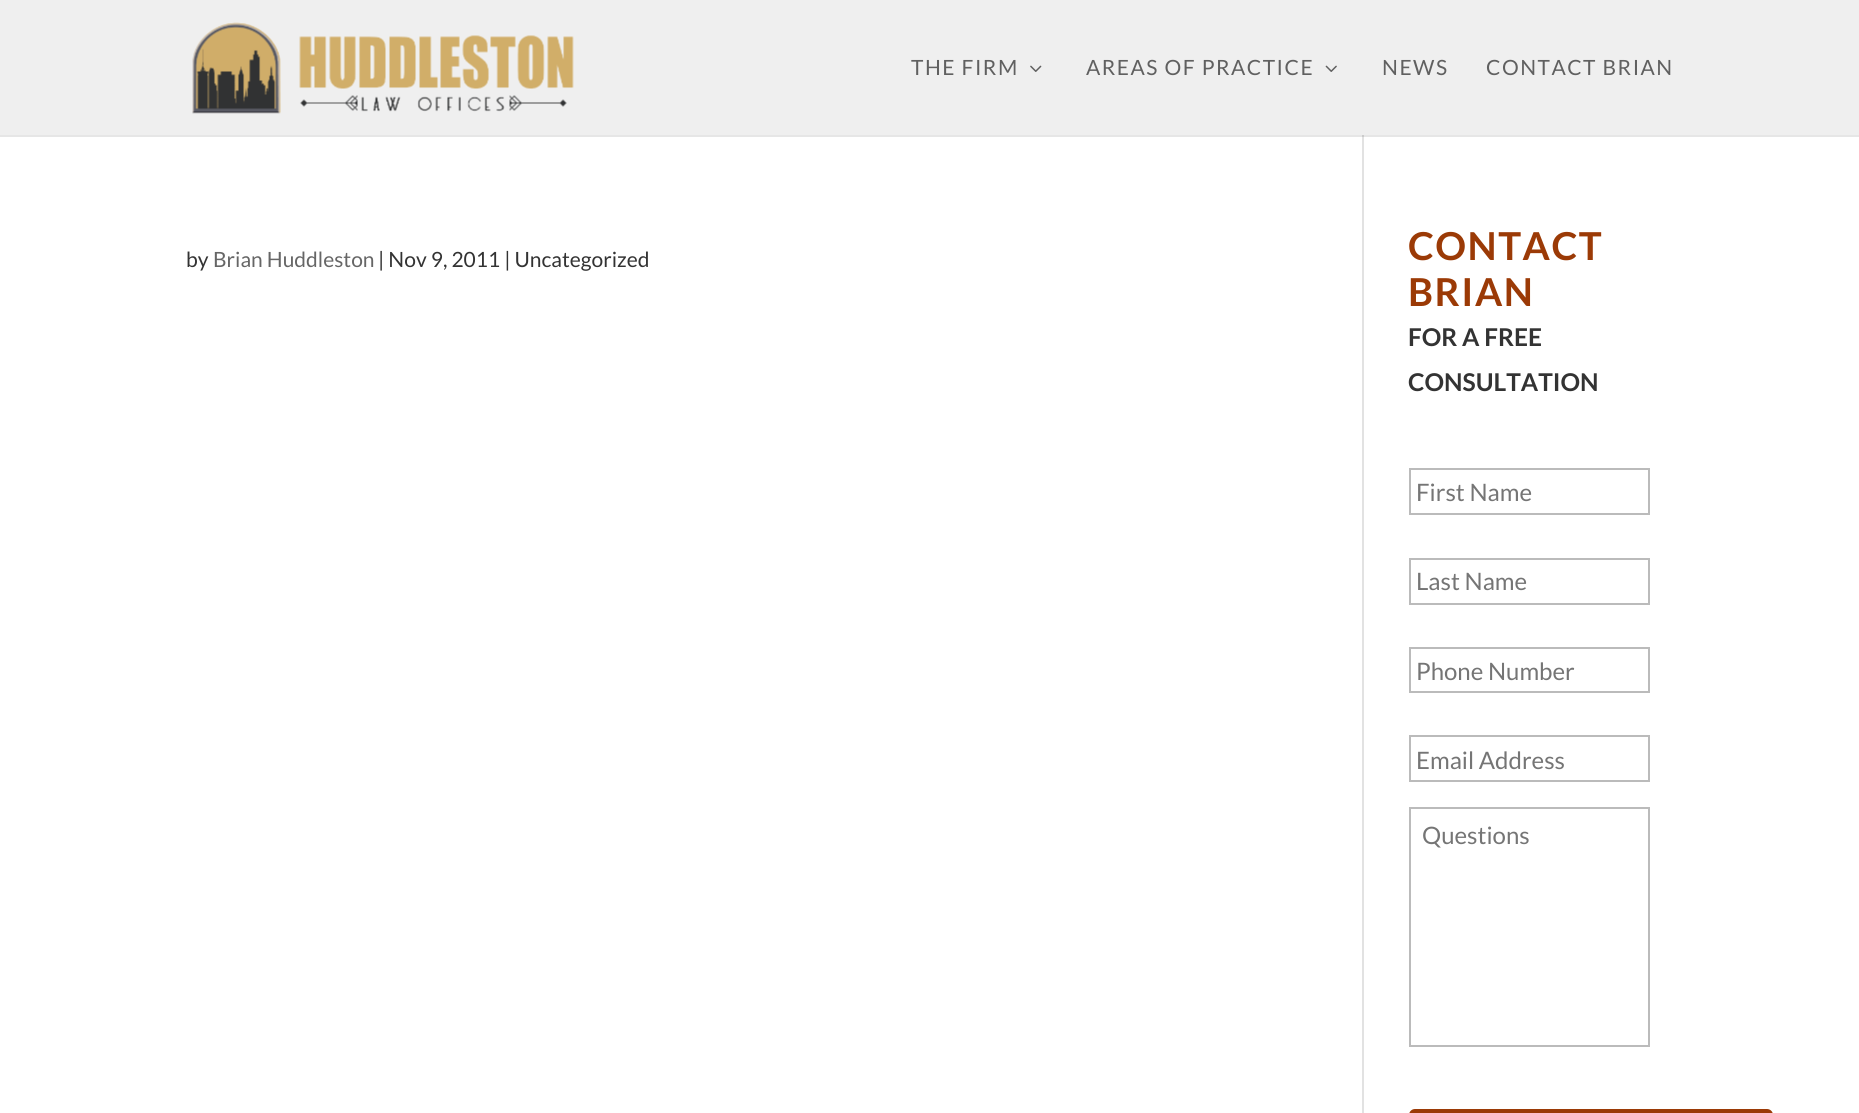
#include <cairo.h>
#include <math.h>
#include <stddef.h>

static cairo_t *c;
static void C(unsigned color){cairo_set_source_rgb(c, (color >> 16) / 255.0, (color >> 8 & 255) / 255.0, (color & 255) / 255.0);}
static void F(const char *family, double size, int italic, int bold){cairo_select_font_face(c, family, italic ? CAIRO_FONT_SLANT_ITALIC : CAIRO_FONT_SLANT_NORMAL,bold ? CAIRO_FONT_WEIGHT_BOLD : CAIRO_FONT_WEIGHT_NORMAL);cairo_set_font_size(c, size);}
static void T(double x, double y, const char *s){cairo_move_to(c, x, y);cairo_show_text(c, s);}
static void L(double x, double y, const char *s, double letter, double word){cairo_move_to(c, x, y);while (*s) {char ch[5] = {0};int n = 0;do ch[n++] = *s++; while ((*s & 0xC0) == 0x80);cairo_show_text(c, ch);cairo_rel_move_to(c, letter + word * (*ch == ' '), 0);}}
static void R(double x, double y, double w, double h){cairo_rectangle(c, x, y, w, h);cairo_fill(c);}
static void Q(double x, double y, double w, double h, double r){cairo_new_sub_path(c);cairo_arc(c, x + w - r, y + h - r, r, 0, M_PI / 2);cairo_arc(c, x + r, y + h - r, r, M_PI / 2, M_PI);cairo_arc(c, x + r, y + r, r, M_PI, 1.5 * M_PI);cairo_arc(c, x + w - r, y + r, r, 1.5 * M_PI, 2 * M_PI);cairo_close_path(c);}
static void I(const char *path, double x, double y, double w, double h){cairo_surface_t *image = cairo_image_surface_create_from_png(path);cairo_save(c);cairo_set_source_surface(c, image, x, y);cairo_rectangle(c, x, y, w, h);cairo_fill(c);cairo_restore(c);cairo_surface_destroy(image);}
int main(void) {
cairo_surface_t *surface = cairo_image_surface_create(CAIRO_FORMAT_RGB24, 1859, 1113);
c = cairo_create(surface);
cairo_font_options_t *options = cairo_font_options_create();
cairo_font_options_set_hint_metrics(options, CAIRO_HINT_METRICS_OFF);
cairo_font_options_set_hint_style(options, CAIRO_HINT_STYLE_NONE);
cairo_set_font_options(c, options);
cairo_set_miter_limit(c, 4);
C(0xffffff);
cairo_paint(c);
C(0xefefef);
R(0,0,1859,135);
I("1.png",192,22,382,92);
F("Lato",21,0,0);
C(0x606060);
L(911,75,"THE FIRM",1.5,0);
I("2.png",1030,65,12,7);
L(1086,75,"AREAS OF PRACTICE",1.5,0);
I("3.png",1325,65,12,7);
L(1382,75,"NEWS",1.5,0);
L(1486,75,"CONTACT BRIAN",1.5,0);
C(0xe6e6e6);
R(0,135,1859,2);
C(0xe2e2e2);
R(1362,135,2,978);
C(0xcbcbcb);
R(1362,135,2,2);
C(0x333333);
T(186,267,"by");
C(0x666666);
T(213,267,"Brian Huddleston");
C(0x333333);
T(378,267,"| Nov 9, 2011 | Uncategorized");
F("Lato",38.5,0,1);
C(0x9b3a06);
L(1408,260,"CONTACT",1.5,0);
L(1408,306,"BRIAN",1.5,0);
F("Lato",24.5,0,1);
C(0x333333);
T(1408,346,"FOR A FREE");
T(1408,391,"CONSULTATION");
cairo_rectangle(c,1410,469,239,45);
C(0xbbbbbb);
cairo_stroke(c);
F("Lato",24,0,0);
C(0x757575);
T(1416,501,"First Name");
cairo_rectangle(c,1410,559,239,45);
C(0xbbbbbb);
cairo_stroke(c);
C(0x757575);
T(1416,590,"Last Name");
cairo_rectangle(c,1410,648,239,44);
C(0xbbbbbb);
cairo_stroke(c);
C(0x757575);
T(1416,680,"Phone Number");
cairo_rectangle(c,1410,736,239,45);
C(0xbbbbbb);
cairo_stroke(c);
C(0x757575);
T(1416,769,"Email Address");
cairo_rectangle(c,1410,808,239,238);
C(0xbbbbbb);
cairo_stroke(c);
C(0x757575);
T(1422,844,"Questions");
C(0x9b3a06);
Q(1409,1109,364,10,6);
cairo_fill(c);
cairo_surface_write_to_png(surface, "o.png");
cairo_font_options_destroy(options);
cairo_destroy(c);
cairo_surface_destroy(surface);
return 0;
}
